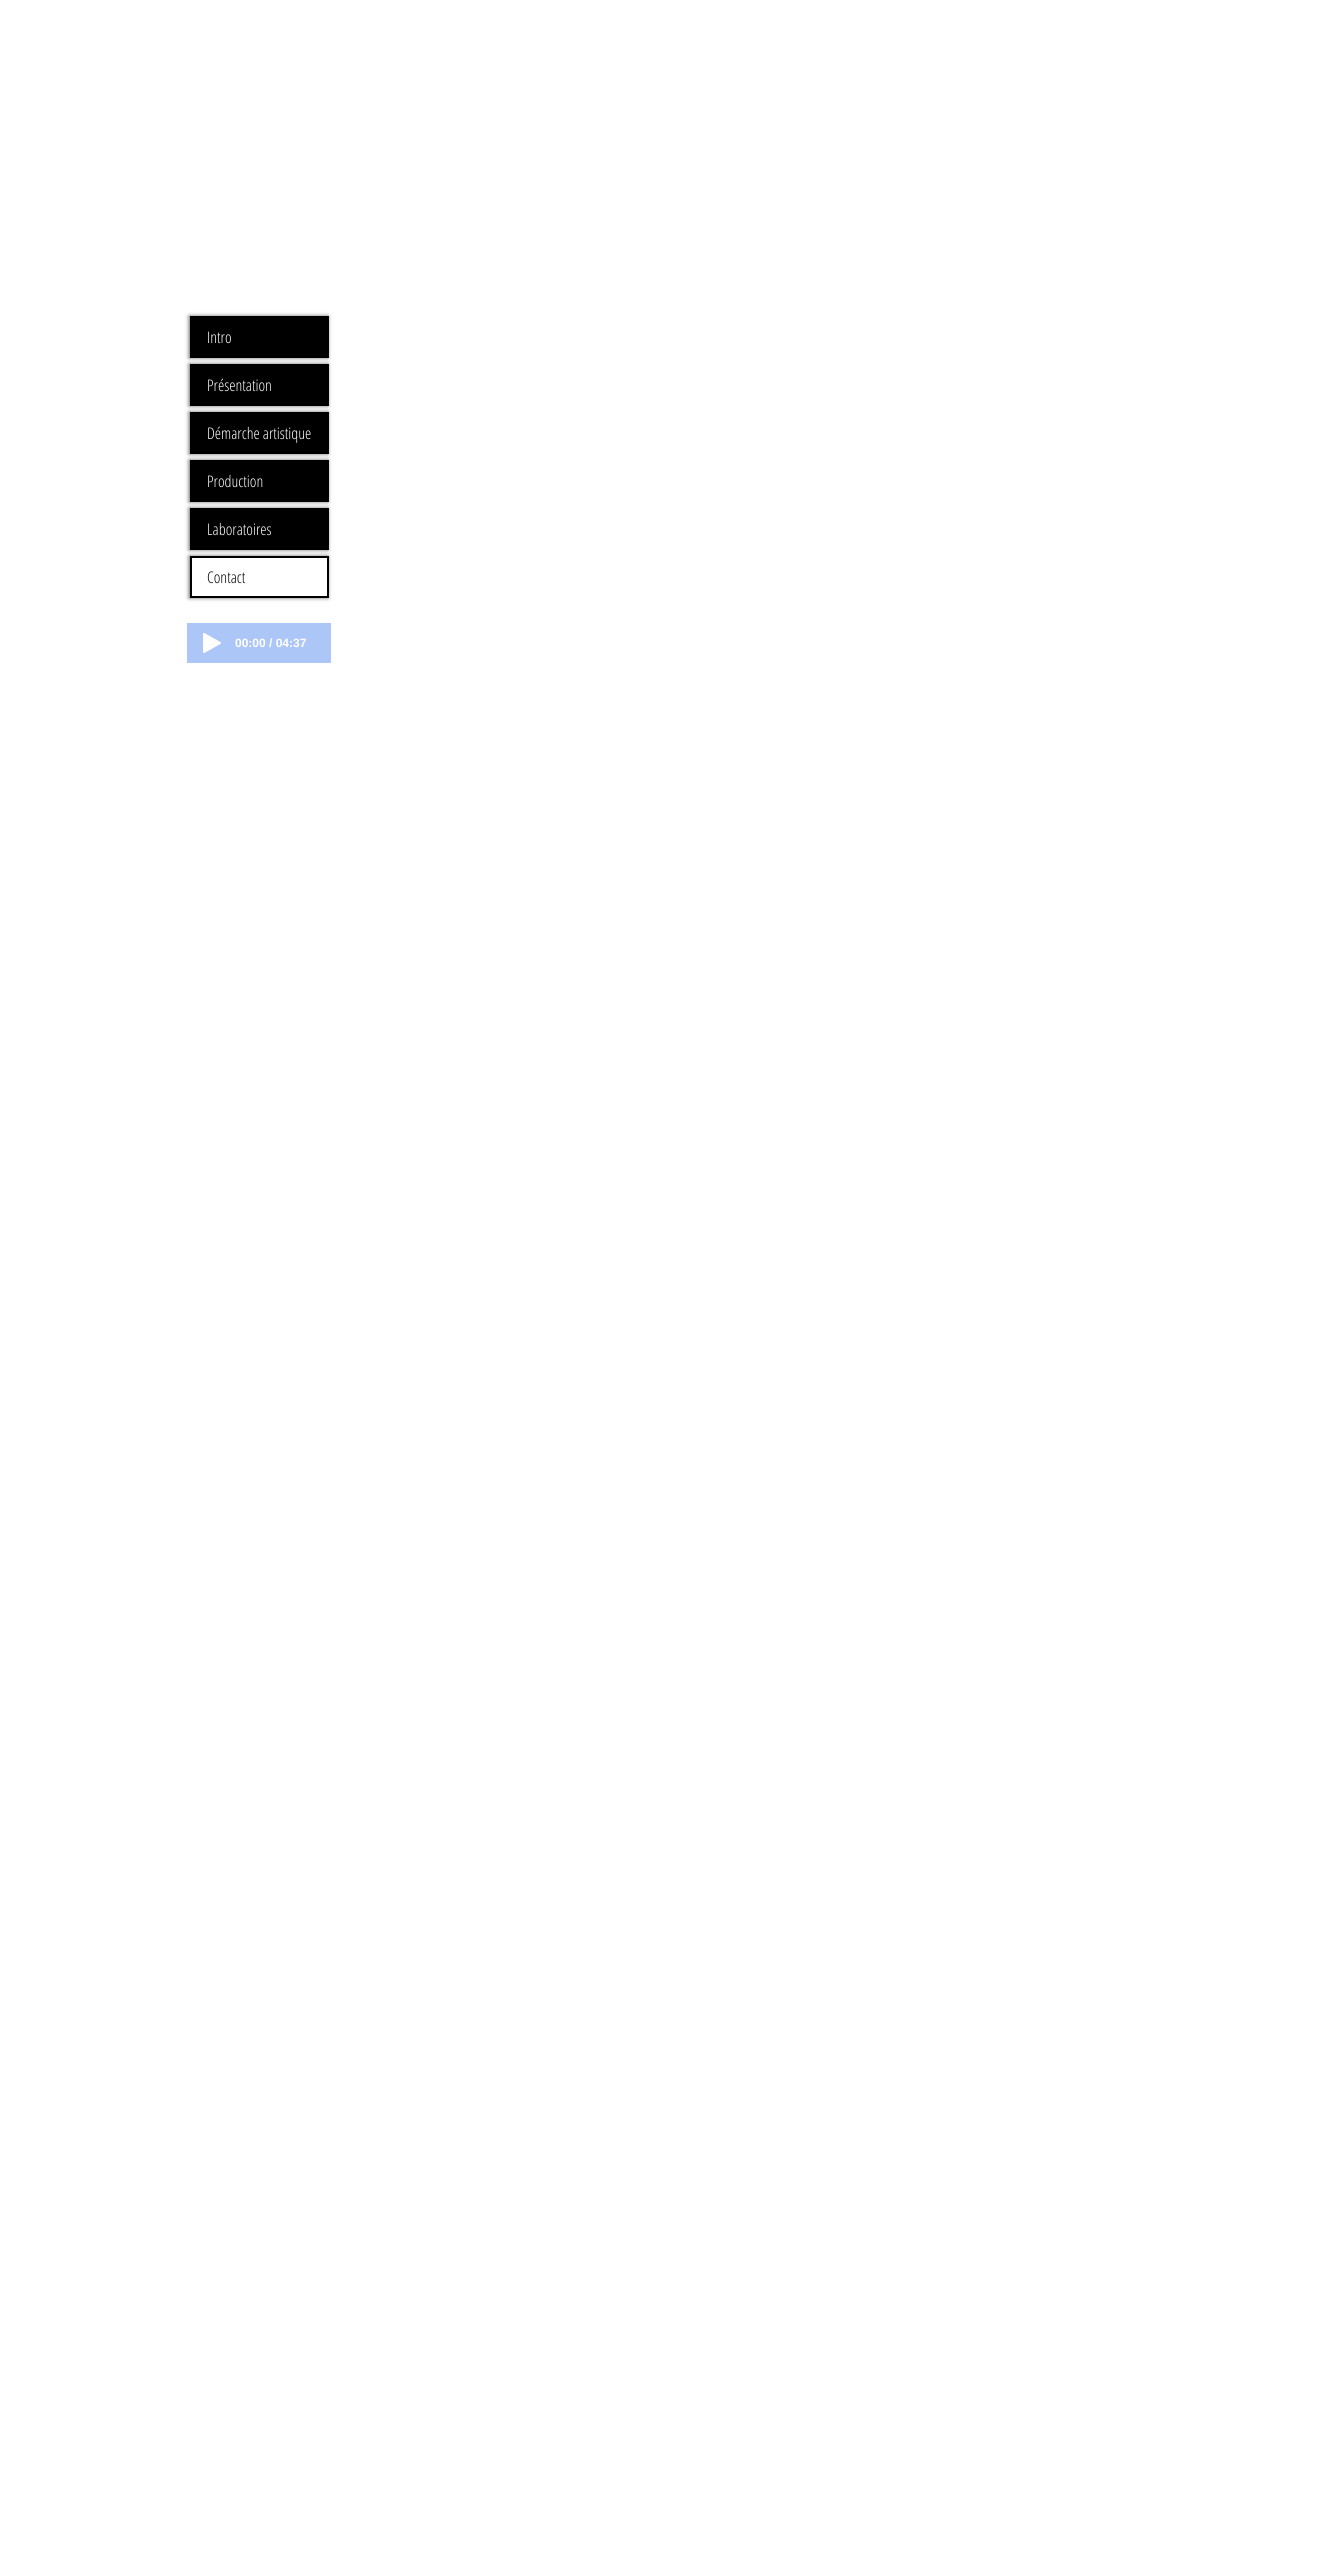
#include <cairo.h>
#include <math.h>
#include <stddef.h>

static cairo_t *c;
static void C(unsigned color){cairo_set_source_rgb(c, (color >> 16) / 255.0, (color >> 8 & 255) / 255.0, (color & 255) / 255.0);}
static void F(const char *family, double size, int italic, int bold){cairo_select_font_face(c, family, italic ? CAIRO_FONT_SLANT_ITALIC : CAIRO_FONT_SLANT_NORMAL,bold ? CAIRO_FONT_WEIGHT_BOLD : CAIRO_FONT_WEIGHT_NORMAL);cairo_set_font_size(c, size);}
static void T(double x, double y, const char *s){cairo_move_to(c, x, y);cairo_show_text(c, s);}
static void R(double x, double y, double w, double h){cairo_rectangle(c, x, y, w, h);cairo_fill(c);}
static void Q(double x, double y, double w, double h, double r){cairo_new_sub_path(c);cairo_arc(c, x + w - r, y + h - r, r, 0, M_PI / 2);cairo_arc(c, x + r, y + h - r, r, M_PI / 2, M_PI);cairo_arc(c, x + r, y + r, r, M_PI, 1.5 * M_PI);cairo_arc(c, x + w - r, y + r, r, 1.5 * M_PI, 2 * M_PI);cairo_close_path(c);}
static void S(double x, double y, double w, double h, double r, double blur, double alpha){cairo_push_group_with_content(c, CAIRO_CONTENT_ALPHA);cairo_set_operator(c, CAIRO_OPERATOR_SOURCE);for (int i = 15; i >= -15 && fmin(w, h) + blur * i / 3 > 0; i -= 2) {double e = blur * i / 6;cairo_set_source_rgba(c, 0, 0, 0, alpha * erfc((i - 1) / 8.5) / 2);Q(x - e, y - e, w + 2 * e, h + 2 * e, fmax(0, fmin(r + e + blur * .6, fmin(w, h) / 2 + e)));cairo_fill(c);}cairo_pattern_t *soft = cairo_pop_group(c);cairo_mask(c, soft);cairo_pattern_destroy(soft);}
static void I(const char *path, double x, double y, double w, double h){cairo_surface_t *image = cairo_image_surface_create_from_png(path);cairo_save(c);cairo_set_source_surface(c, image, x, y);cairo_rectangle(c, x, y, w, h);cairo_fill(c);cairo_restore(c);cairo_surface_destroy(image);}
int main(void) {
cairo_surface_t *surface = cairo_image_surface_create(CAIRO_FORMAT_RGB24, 1336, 2575);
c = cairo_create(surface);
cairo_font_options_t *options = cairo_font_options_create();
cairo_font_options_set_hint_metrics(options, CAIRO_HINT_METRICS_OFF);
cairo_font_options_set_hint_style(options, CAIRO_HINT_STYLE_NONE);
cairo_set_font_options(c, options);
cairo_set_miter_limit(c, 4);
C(0xffffff);
cairo_paint(c);
C(0x000000);
S(189,316,139,42,0,2,.6);
C(0x000000);
R(190,316,139,42);
F("Open Sans Condensed Light",16,0,0);
C(0xffffff);
T(207,343,"Intro");
C(0x000000);
S(189,364,139,42,0,2,.6);
C(0x000000);
R(190,364,139,42);
C(0xffffff);
T(207,391,"Présentation");
C(0x000000);
S(189,412,139,42,0,2,.6);
C(0x000000);
R(190,412,139,42);
C(0xffffff);
T(207,439,"Démarche artistique");
C(0x000000);
S(189,460,139,42,0,2,.6);
C(0x000000);
R(190,460,139,42);
C(0xffffff);
T(207,487,"Production");
C(0x000000);
S(189,508,139,42,0,2,.6);
C(0x000000);
R(190,508,139,42);
C(0xffffff);
T(207,535,"Laboratoires");
cairo_save(c);
cairo_set_fill_rule(c,CAIRO_FILL_RULE_EVEN_ODD);
cairo_new_path(c);
cairo_move_to(c,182,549);
cairo_line_to(c,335,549);
cairo_line_to(c,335,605);
cairo_line_to(c,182,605);
cairo_close_path(c);
cairo_move_to(c,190,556);
cairo_line_to(c,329,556);
cairo_line_to(c,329,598);
cairo_line_to(c,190,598);
cairo_close_path(c);
cairo_clip(c);
C(0x000000);
S(189,556,139,42,0,2,.6);
cairo_restore(c);
cairo_rectangle(c,191,557,137,40);
C(0x000000);
cairo_stroke(c);
T(207,583,"Contact");
C(0xadc6f8);
R(187,623,144,40);
I("1.png",203,633,18,20);
F("Liberation Sans",12,0,1);
C(0xffffff);
T(235,647,"00:00 / 04:37");
cairo_surface_write_to_png(surface, "o.png");
cairo_font_options_destroy(options);
cairo_destroy(c);
cairo_surface_destroy(surface);
return 0;
}
